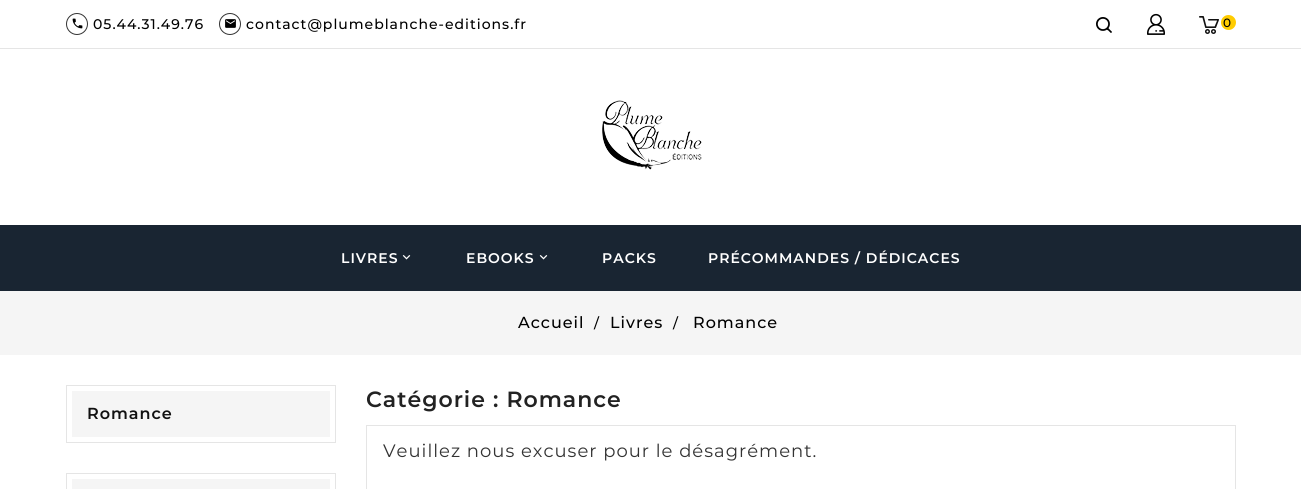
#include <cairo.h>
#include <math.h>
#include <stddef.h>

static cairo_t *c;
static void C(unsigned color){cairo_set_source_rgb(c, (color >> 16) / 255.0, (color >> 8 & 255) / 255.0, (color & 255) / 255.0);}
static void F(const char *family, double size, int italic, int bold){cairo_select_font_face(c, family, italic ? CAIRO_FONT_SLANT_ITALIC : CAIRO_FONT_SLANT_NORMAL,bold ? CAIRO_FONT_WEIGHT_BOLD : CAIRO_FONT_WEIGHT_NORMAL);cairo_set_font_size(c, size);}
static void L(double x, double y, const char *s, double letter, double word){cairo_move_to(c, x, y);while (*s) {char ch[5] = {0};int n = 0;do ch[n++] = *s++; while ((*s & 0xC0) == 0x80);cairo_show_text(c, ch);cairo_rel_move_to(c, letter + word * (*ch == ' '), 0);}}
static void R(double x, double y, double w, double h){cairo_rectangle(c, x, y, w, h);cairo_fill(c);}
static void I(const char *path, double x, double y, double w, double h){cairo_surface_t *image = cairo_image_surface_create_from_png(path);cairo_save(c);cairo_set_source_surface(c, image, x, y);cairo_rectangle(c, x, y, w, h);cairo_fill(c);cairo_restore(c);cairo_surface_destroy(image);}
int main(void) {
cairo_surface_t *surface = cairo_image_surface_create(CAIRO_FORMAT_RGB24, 1301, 489);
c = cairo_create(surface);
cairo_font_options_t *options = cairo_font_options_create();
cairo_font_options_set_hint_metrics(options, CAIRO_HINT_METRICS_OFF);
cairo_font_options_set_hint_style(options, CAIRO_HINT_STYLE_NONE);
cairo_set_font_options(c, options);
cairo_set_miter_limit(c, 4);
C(0xffffff);
cairo_paint(c);
C(0xe5e5e5);
R(0,48,1301,1);
cairo_arc(c,77,24,10.5,0,2 * M_PI);
C(0x333333);
cairo_set_line_width(c,1);
cairo_stroke(c);
I("1.png",72,18,11,11);
F("Montserrat Medium",14,0,0);
C(0x000000);
L(93,29,"05.44.31.49.76",1,0);
cairo_new_path(c);
cairo_arc(c,230,24,10.5,0,2 * M_PI);
C(0x333333);
cairo_stroke(c);
I("2.png",225,19,11,9);
C(0x000000);
L(246,29,"contact@plumeblanche-editions.fr",1,0);
I("3.png",1096,17,16,16);
I("4.png",1147,13,18,22);
I("5.png",1199,16,20,18);
C(0xffcc01);
cairo_arc(c,1228.5,22.5,7.5,0,2 * M_PI);
cairo_fill(c);
F("Montserrat Medium",12,0,0);
C(0x000000);
L(1223,27,"0",1,0);
I("6.png",602,100,100,70);
C(0x192532);
R(0,225,1301,66);
F("Montserrat SemiBold",14,0,0);
C(0xffffff);
L(341,263,"LIVRES",1,0);
I("7.png",402,255,9,5);
L(466,263,"EBOOKS",1,0);
I("7.png",539,255,9,5);
L(602,263,"PACKS",1,0);
L(708,263,"PRÉCOMMANDES / DÉDICACES",1,0);
C(0xf5f5f5);
R(0,291,1301,64);
F("Montserrat Medium",16,0,0);
C(0x000000);
L(518,328,"Accueil",1,0);
F("Montserrat Medium",14,0,0);
L(594,328,"/",1,0);
F("Montserrat Medium",16,0,0);
L(610,328,"Livres",1,0);
F("Montserrat Medium",14,0,0);
L(673,328,"/",1,0);
F("Montserrat Medium",16,0,0);
L(693,328,"Romance",1,0);
cairo_rectangle(c,66.5,385.5,269,57);
C(0xe5e5e5);
cairo_stroke(c);
C(0xf5f5f5);
R(72,391,258,46);
F("Montserrat SemiBold",16,0,0);
C(0x111111);
L(87,419,"Romance",1,0);
cairo_rectangle(c,66.5,473.5,269,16);
C(0xe5e5e5);
cairo_stroke(c);
C(0xf5f5f5);
R(72,479,258,10);
F("Montserrat SemiBold",22,0,0);
C(0x222222);
L(366,407,"Catégorie : Romance",1,0);
cairo_rectangle(c,366.5,425.5,869,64);
C(0xe5e5e5);
cairo_stroke(c);
F("Montserrat",18,0,0);
C(0x333333);
L(383,457,"Veuillez nous excuser pour le désagrément.",1,0);
cairo_surface_write_to_png(surface, "o.png");
cairo_font_options_destroy(options);
cairo_destroy(c);
cairo_surface_destroy(surface);
return 0;
}
